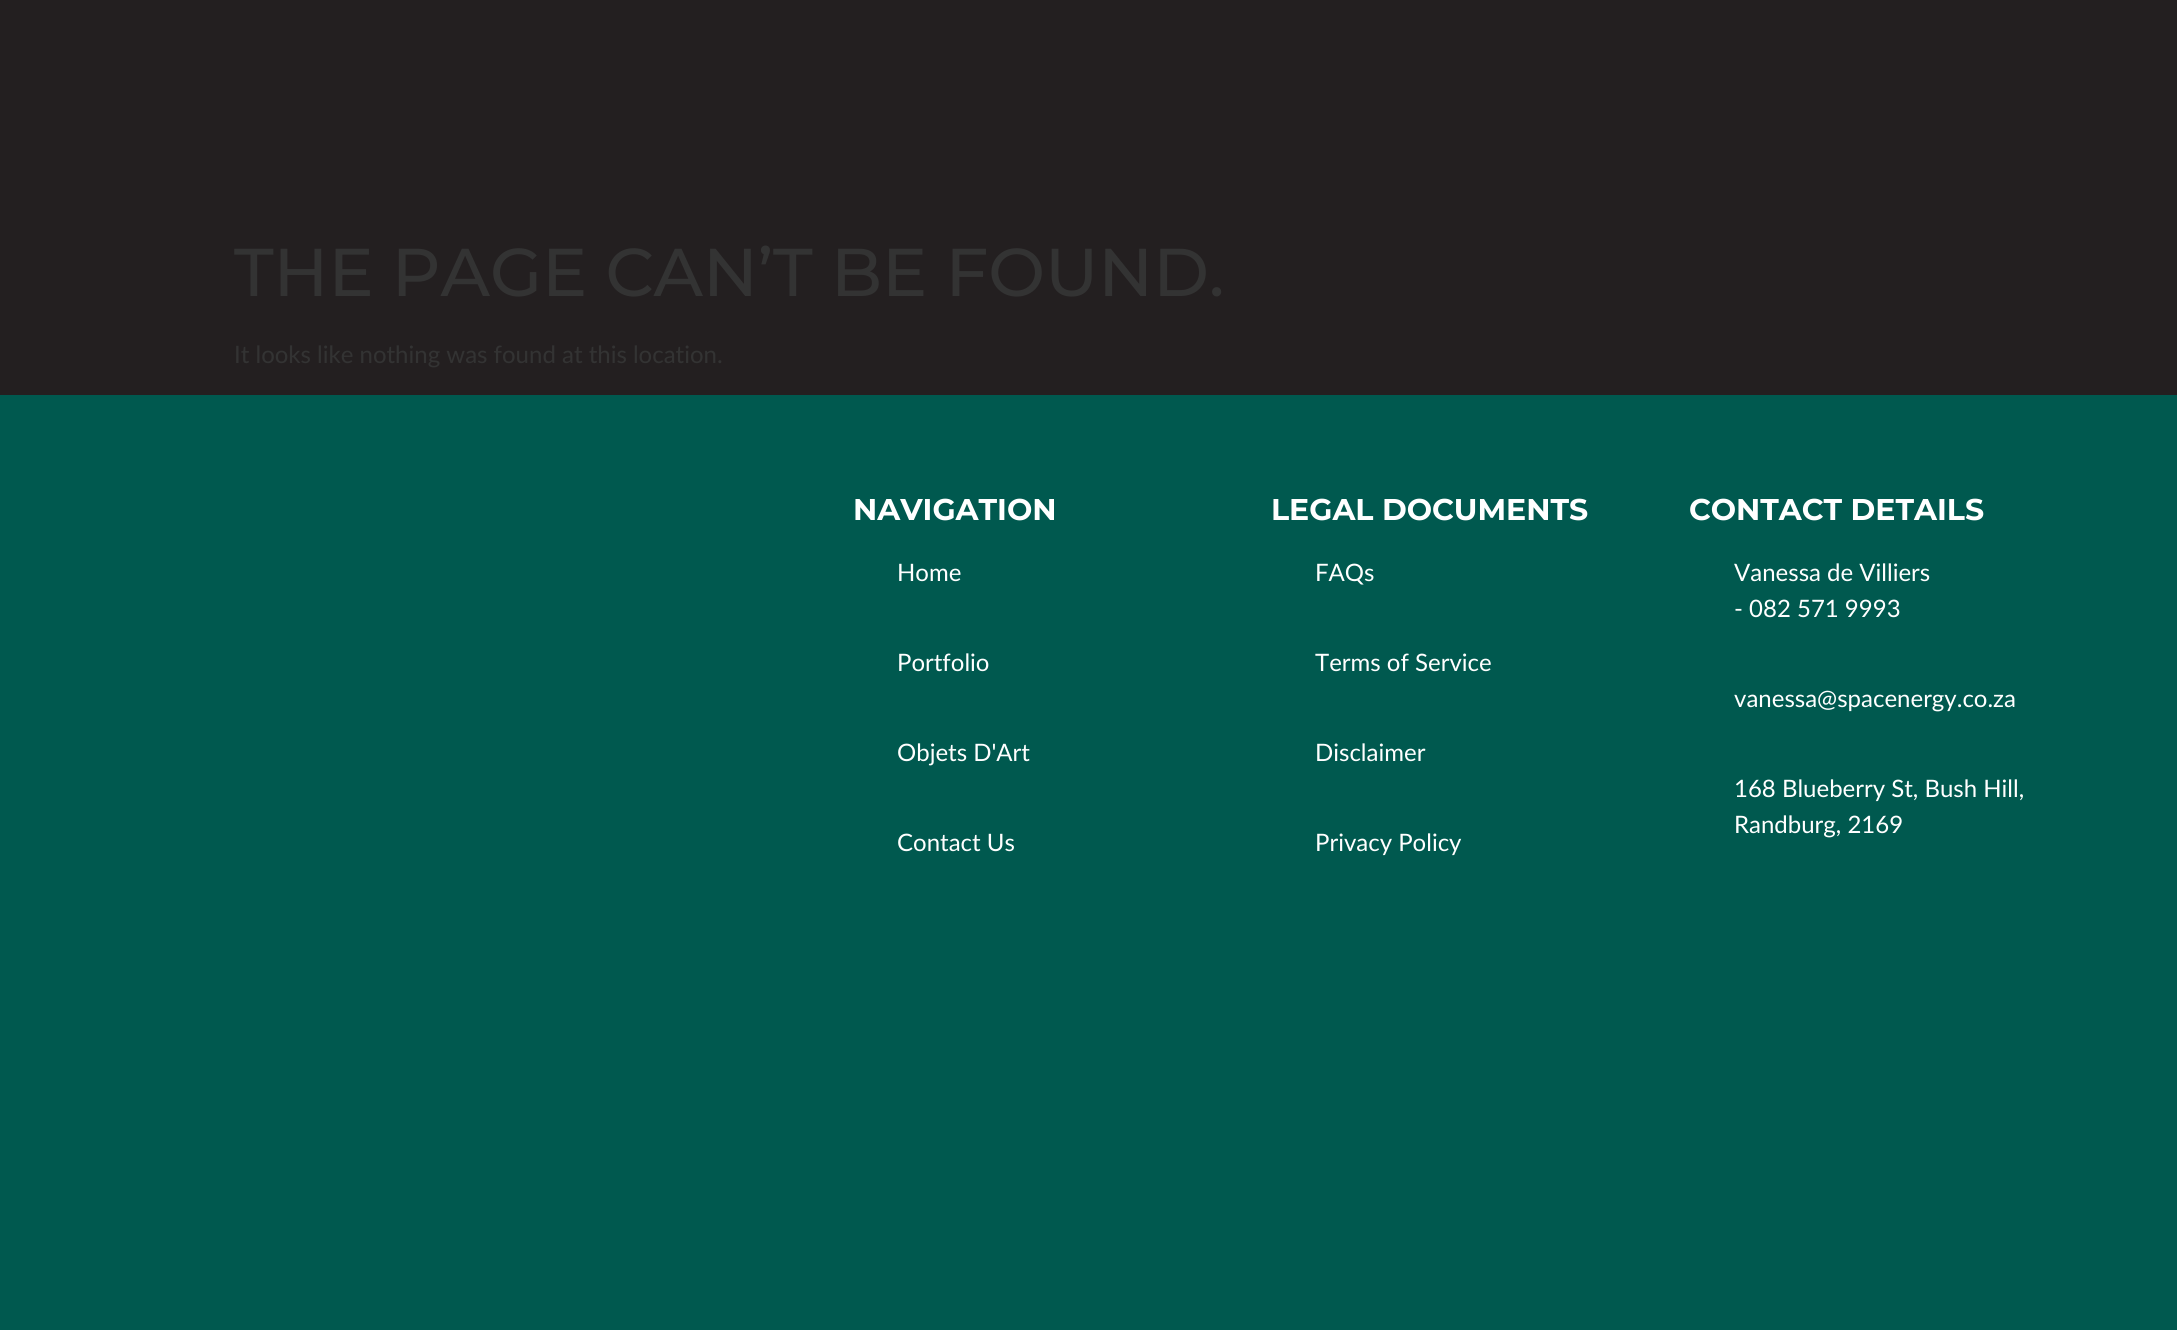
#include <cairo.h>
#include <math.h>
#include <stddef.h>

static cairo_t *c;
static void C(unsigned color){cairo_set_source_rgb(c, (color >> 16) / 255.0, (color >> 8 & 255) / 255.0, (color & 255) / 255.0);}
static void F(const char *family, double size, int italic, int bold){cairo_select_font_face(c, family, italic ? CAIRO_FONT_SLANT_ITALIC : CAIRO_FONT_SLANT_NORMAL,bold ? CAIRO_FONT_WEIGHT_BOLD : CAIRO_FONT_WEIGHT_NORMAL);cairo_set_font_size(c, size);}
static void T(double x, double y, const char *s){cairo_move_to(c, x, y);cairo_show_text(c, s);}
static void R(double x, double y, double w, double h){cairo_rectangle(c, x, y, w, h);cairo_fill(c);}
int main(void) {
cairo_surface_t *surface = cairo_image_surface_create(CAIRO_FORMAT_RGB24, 2177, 1330);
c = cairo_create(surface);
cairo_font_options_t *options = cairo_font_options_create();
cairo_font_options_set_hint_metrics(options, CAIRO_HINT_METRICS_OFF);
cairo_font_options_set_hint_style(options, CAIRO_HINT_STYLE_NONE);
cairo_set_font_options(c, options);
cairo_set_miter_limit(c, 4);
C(0x231f20);
cairo_paint(c);
F("Montserrat Medium",67.5,0,0);
C(0x333333);
T(234,296,"THE PAGE CAN’T BE FOUND.");
F("Lato",24,0,0);
T(234,363,"It looks like nothing was found at this location.");
C(0x00594f);
R(0,395,2177,935);
F("Montserrat",30,0,1);
C(0xffffff);
T(853,520,"NAVIGATION");
F("Lato",24,0,0);
T(897,581,"Home");
T(897,671,"Portfolio");
T(897,761,"Objets D'Art");
T(897,851,"Contact Us");
F("Montserrat",30,0,1);
T(1271,520,"LEGAL DOCUMENTS");
F("Lato",24,0,0);
T(1315,581,"FAQs");
T(1315,671,"Terms of Service");
T(1315,761,"Disclaimer");
T(1315,851,"Privacy Policy");
F("Montserrat",30,0,1);
T(1689,520,"CONTACT DETAILS");
F("Lato",24,0,0);
T(1734,581,"Vanessa de Villiers");
T(1734,617,"- 082 571 9993");
T(1734,707,"vanessa@spacenergy.co.za");
T(1734,797,"168 Blueberry St, Bush Hill,");
T(1734,833,"Randburg, 2169");
cairo_surface_write_to_png(surface, "o.png");
cairo_font_options_destroy(options);
cairo_destroy(c);
cairo_surface_destroy(surface);
return 0;
}
